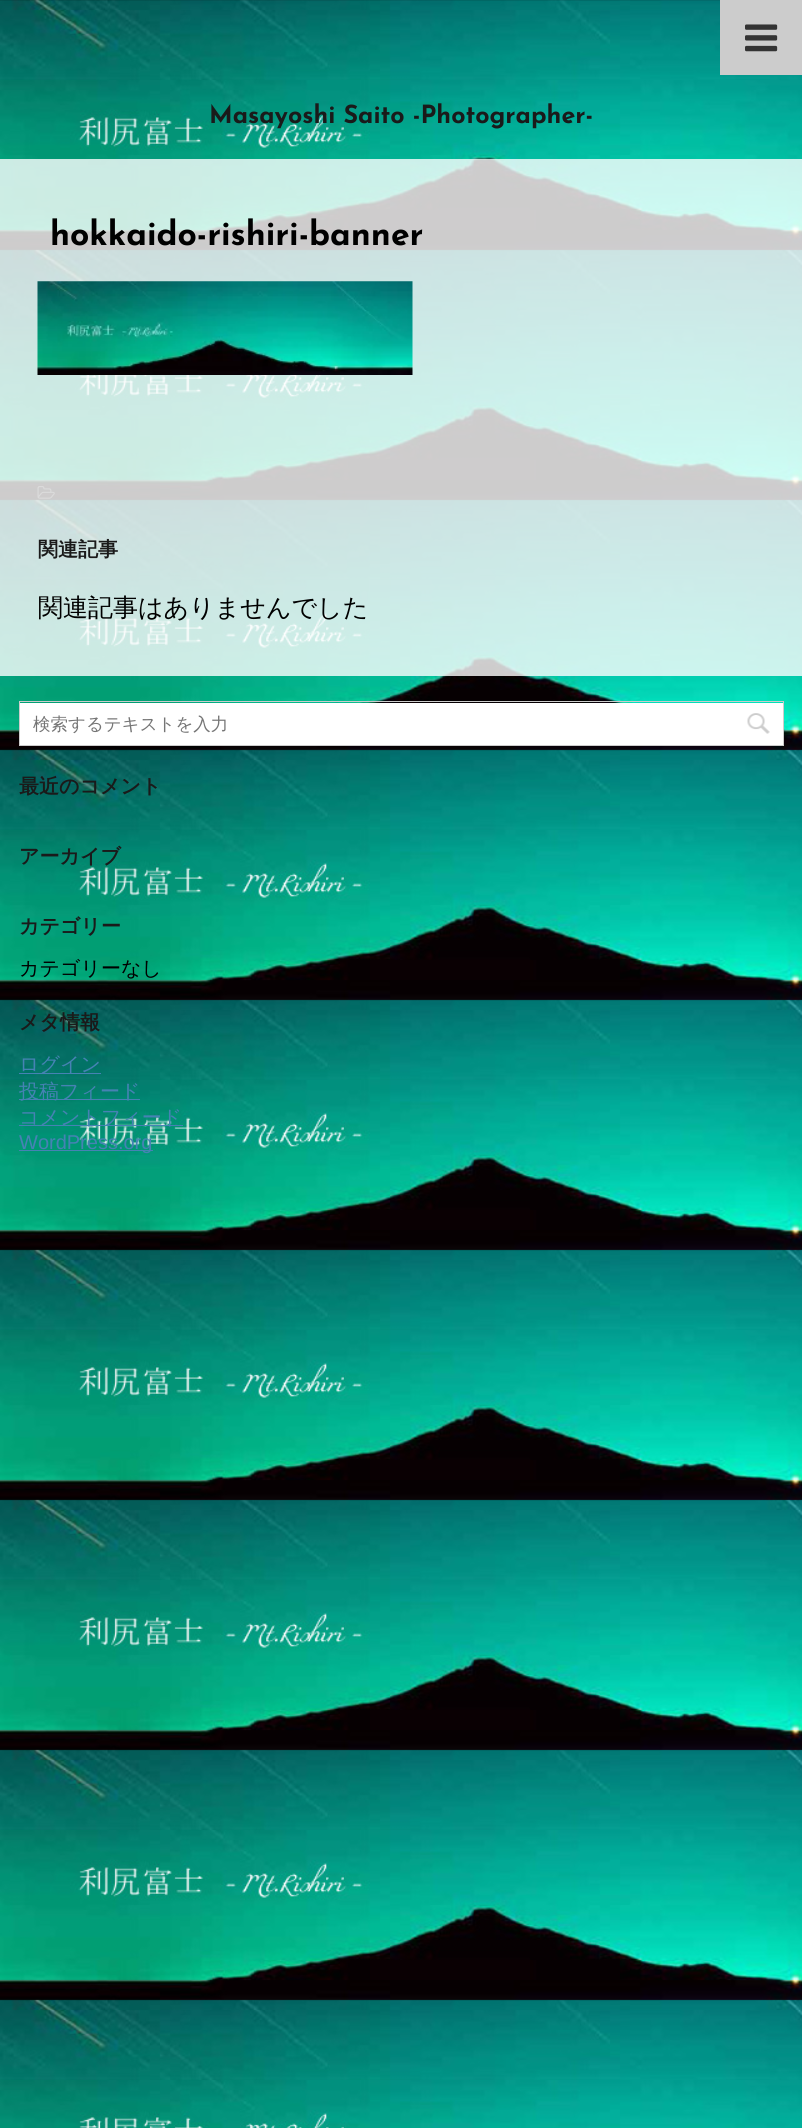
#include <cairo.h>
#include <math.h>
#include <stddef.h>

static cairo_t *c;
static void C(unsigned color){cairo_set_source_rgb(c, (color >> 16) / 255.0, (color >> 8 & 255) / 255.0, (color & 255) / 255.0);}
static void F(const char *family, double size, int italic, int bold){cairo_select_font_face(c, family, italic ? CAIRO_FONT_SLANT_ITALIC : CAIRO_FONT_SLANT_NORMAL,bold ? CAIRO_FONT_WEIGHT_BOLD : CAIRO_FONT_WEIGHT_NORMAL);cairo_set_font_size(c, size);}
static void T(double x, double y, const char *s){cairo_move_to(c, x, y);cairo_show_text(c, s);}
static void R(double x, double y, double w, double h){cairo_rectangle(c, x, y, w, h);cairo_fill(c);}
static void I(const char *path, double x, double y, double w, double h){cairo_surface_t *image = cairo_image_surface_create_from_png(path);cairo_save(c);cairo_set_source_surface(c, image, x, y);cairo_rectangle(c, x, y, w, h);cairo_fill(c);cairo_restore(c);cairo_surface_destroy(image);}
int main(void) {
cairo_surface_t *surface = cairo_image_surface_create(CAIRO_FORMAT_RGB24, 802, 2128);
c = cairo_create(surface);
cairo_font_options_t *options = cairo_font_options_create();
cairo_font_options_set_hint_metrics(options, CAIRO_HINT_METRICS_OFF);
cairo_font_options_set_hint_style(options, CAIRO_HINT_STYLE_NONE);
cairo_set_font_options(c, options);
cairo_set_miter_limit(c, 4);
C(0xffffff);
cairo_paint(c);
I("1.png",0,0,802,2128);
C(0xcccccc);
R(720,0,82,75);
I("2.png",745,24,33,28);
F("Josefin Sans",25,0,1);
C(0x1a1a1a);
T(209,123,"Masayoshi Saito -Photographer-");
cairo_set_source_rgba(c,1,1,1,0.8);
R(0,159,802,517);
F("Josefin Sans",33.75,0,1);
C(0x000000);
T(50,245,"hokkaido-rishiri-banner");
I("3.png",37,281,376,94);
I("4.png",37,486,18,13);
F("WenQuanYi Zen Hei",20,0,1);
C(0x1a1a1a);
T(38,556,"関連記事");
F("WenQuanYi Zen Hei Medium",25,0,0);
C(0x000000);
T(38,616,"関連記事はありませんでした");
cairo_rectangle(c,19.5,701.5,764,44);
C(0xcccccc);
cairo_set_line_width(c,1);
cairo_stroke(c);
C(0xffffff);
R(20,703,763,42);
F("WenQuanYi Zen Hei Medium",17.5,0,0);
C(0x757575);
T(33,730,"検索するテキストを入力");
I("5.png",747,713,23,21);
F("WenQuanYi Zen Hei",20,0,1);
C(0x1a1a1a);
T(19,793,"最近のコメント");
T(19,863,"アーカイブ");
T(19,933,"カテゴリー");
F("WenQuanYi Zen Hei Medium",20,0,0);
C(0x000000);
T(19,975,"カテゴリーなし");
F("WenQuanYi Zen Hei",20,0,1);
C(0x1a1a1a);
T(19,1029,"メタ情報");
C(0x4682b4);
R(19,1073,82,1);
F("WenQuanYi Zen Hei Medium",20,0,0);
T(19,1071,"ログイン");
R(19,1099,121,1);
T(19,1098,"投稿フィード");
R(19,1125,164,1);
T(19,1124,"コメントフィード");
R(19,1150,134,1);
F("Liberation Sans",20,0,0);
T(19,1149,"WordPress.org");
cairo_surface_write_to_png(surface, "o.png");
cairo_font_options_destroy(options);
cairo_destroy(c);
cairo_surface_destroy(surface);
return 0;
}
